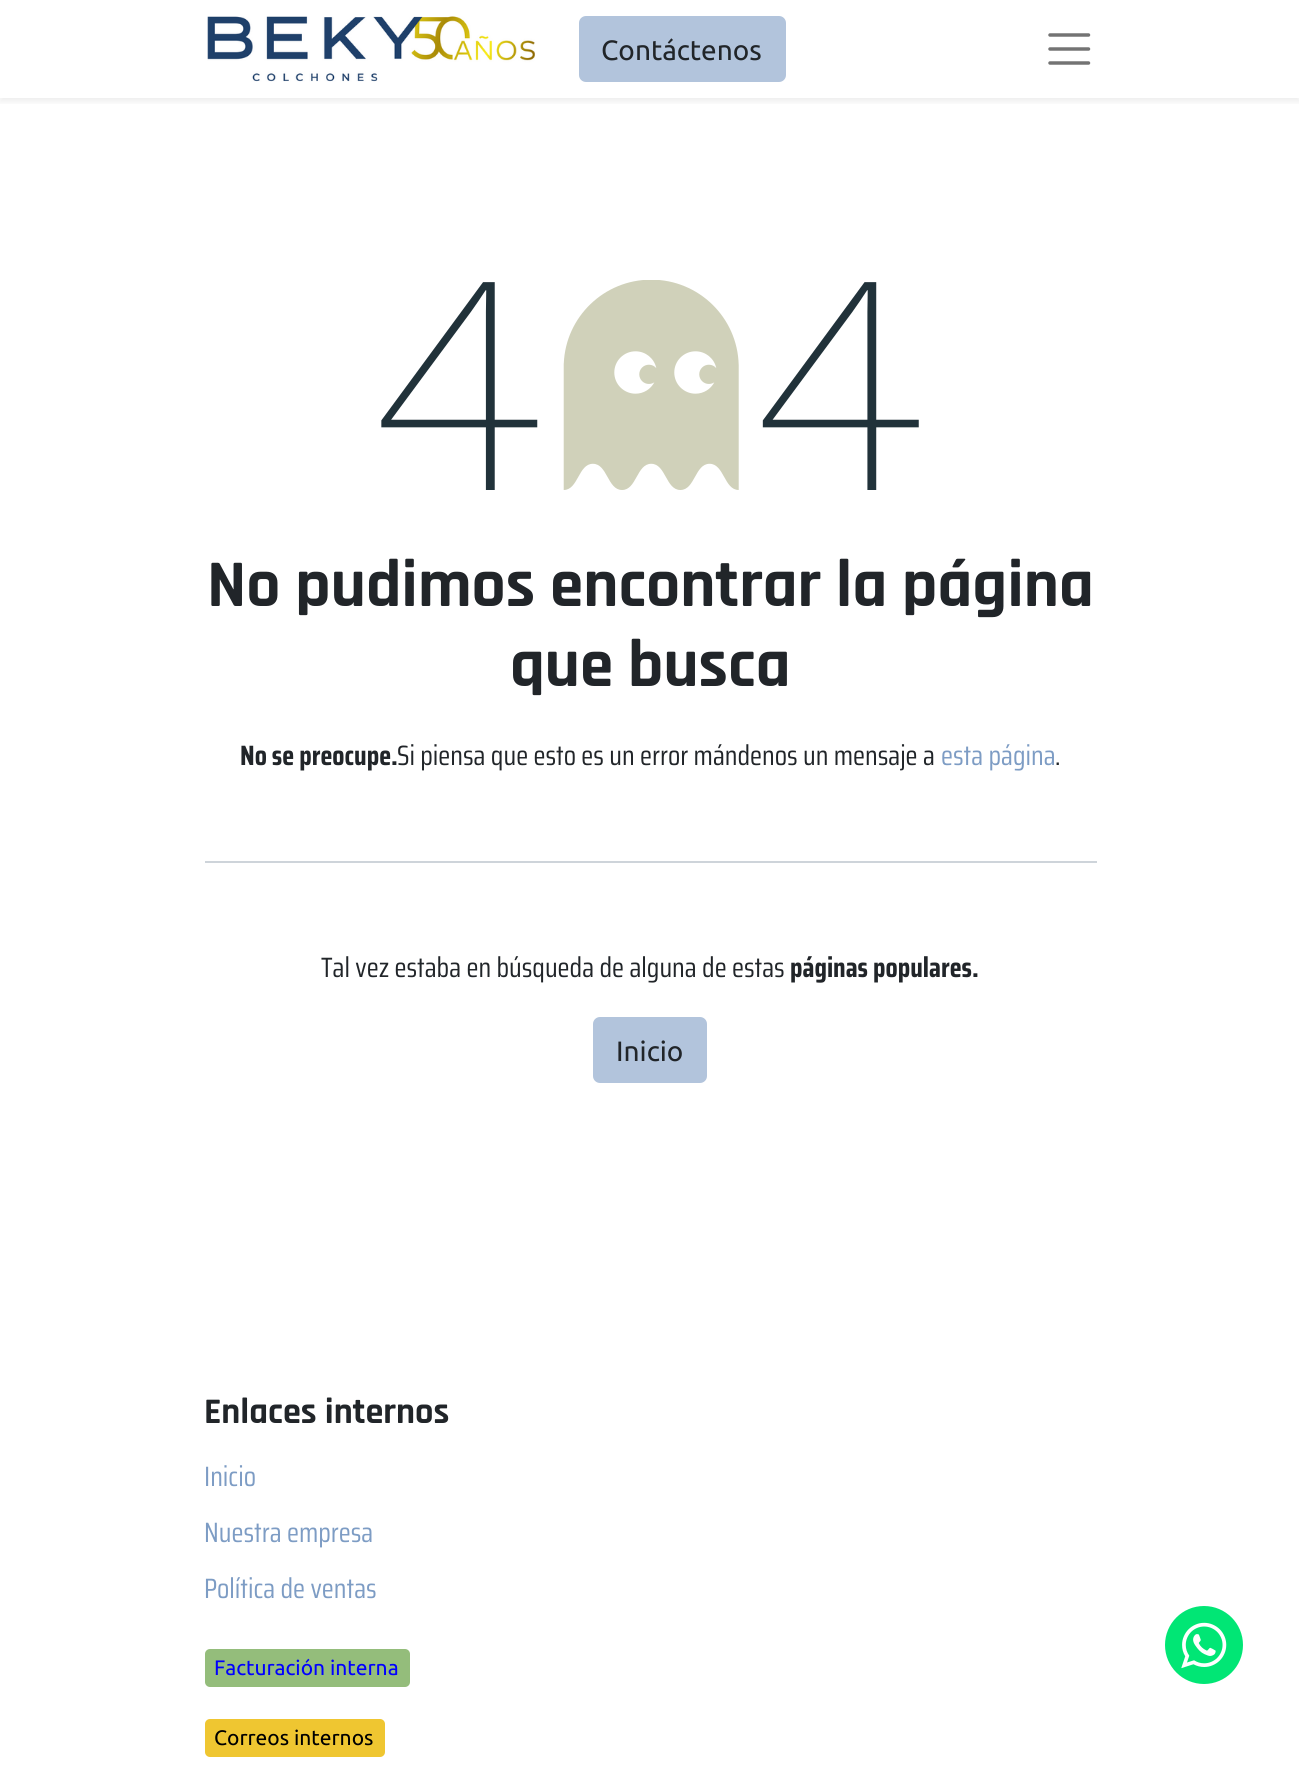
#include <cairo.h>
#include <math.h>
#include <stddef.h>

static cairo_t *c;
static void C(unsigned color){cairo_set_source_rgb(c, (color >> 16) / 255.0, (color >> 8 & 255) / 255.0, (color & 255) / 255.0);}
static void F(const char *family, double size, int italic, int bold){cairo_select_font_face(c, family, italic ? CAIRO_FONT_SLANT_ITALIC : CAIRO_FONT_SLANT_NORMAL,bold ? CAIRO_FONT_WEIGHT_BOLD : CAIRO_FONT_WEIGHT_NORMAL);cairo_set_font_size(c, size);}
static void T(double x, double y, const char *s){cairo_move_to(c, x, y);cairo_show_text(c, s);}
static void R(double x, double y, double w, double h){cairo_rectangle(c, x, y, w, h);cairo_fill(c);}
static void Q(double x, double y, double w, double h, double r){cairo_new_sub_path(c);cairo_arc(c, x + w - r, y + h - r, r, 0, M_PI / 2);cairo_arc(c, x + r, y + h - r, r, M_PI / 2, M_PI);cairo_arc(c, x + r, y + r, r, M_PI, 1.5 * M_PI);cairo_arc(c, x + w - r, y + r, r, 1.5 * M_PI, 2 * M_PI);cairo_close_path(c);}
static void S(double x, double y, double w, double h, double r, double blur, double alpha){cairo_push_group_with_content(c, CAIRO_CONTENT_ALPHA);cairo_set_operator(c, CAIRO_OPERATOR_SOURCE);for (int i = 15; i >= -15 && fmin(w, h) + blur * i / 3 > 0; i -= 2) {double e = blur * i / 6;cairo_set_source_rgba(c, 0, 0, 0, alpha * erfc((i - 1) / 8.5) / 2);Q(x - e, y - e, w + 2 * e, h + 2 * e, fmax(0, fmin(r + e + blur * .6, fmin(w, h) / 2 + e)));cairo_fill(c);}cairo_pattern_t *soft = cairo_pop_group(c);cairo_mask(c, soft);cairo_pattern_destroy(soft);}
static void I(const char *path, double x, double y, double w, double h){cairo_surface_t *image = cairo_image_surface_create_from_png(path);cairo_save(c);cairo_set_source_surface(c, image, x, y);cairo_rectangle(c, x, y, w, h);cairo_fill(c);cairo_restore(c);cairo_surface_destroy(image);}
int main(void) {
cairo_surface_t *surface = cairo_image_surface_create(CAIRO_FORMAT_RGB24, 1299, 1775);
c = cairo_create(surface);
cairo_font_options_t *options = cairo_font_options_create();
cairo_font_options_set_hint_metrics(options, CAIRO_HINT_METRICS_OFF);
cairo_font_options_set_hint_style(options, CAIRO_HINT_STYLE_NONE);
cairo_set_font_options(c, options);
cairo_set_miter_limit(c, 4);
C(0xffffff);
cairo_paint(c);
cairo_save(c);
cairo_rectangle(c,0,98,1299,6);
cairo_clip(c);
C(0x000000);
S(0,4,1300,98,0,3.5,.07);
cairo_restore(c);
I("1.png",207,16,328,66);
C(0xb2c4dc);
Q(580,17,205,64,6);
cairo_fill_preserve(c);
cairo_stroke(c);
F("Ubuntu",28,0,0);
C(0x212529);
T(601,60,"Contáctenos");
cairo_new_path(c);
cairo_move_to(c,1050,35);
cairo_line_to(c,1088.5,35);
cairo_move_to(c,1050,49);
cairo_line_to(c,1088.5,49);
cairo_move_to(c,1050,63);
cairo_line_to(c,1088.5,63);
C(0x737373);
cairo_set_line_width(c,3.5);
cairo_set_line_cap(c,CAIRO_LINE_CAP_ROUND);
cairo_stroke(c);
I("2.png",381,280,538,210);
F("Rajdhani",67.25,0,1);
C(0x212529);
T(207,606,"No pudimos encontrar la página");
T(510,686,"que busca");
F("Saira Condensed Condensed",28,0,1);
T(240,765,"No se preocupe.");
F("Saira Condensed",28,0,0);
T(397,765,"Si piensa que esto es un error mándenos un mensaje a");
C(0x7d9cc4);
T(941,765,"esta página");
C(0x212529);
T(1055,765,".");
C(0xced4da);
R(205,861,892,2);
C(0x212529);
T(321,977,"Tal vez estaba en búsqueda de alguna de estas");
F("Saira Condensed Condensed",28,0,1);
T(790,977,"páginas populares.");
C(0xb2c4dc);
Q(594,1018,112,64,6);
cairo_fill_preserve(c);
cairo_set_line_width(c,2);
cairo_set_line_cap(c,CAIRO_LINE_CAP_BUTT);
cairo_stroke(c);
F("Ubuntu",28,0,0);
C(0x212529);
T(616,1061,"Inicio");
F("Rajdhani",36.25,0,1);
T(204,1423,"Enlaces internos");
F("Saira Condensed",28,0,0);
C(0x7d9cc4);
T(204,1486,"Inicio");
T(204,1542,"Nuestra empresa");
T(204,1598,"Política de ventas");
C(0x94bd7b);
Q(205,1649,205,38,5);
cairo_fill(c);
F("Ubuntu",21,0,0);
C(0x0000ff);
T(214,1675,"Facturación interna");
C(0xefc631);
Q(205,1719,180,38,5);
cairo_fill(c);
C(0x000000);
T(214,1745,"Correos internos");
C(0x01e675);
cairo_new_path(c);
cairo_arc(c,1204,1645,41.5,0,2 * M_PI);
cairo_fill_preserve(c);
C(0xffffff);
cairo_set_line_width(c,5);
cairo_stroke(c);
I("3.png",1181,1622,46,47);
cairo_surface_write_to_png(surface, "o.png");
cairo_font_options_destroy(options);
cairo_destroy(c);
cairo_surface_destroy(surface);
return 0;
}
